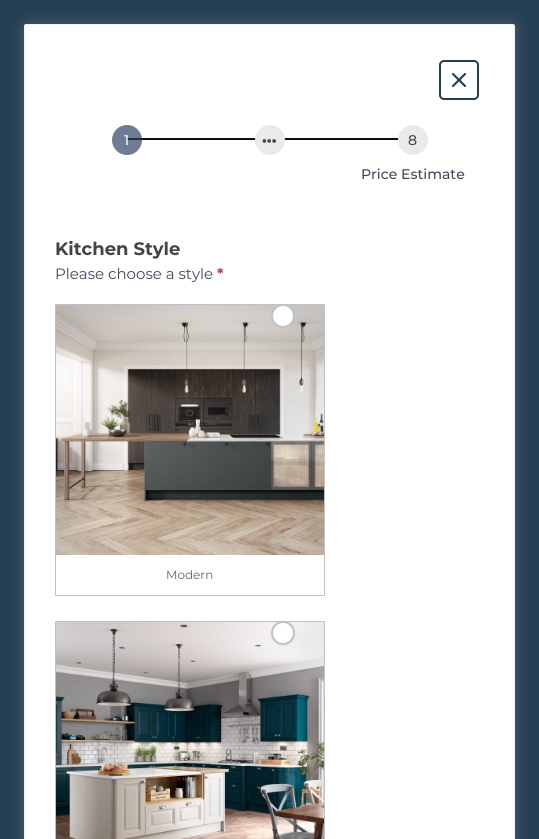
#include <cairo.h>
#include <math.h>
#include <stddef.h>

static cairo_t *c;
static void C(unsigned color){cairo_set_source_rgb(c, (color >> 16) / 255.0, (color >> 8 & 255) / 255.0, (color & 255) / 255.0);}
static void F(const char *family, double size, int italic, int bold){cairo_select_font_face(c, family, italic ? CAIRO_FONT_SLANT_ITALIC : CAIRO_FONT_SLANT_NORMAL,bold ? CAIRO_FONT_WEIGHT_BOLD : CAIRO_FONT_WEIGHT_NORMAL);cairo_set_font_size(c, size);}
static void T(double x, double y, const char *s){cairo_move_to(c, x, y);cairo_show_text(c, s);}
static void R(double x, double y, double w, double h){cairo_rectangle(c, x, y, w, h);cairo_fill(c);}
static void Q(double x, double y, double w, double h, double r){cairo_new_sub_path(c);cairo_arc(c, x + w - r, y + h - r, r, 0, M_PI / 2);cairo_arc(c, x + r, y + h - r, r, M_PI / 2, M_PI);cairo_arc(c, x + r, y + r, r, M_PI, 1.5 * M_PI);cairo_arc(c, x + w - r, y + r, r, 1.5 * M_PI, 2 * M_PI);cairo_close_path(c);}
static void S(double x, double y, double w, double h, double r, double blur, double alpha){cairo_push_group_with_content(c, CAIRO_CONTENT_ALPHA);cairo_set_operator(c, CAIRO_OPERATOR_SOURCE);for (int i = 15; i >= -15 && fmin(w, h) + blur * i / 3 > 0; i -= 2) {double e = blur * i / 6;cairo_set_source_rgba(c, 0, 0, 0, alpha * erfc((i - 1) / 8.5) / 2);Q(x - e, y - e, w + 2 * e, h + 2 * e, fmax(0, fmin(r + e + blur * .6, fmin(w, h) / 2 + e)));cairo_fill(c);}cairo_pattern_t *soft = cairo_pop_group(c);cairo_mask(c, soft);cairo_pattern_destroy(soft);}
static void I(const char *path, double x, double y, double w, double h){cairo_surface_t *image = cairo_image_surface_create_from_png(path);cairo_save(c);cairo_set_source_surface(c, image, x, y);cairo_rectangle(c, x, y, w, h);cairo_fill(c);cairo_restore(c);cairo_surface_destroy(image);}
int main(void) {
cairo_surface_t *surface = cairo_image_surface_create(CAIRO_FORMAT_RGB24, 539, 839);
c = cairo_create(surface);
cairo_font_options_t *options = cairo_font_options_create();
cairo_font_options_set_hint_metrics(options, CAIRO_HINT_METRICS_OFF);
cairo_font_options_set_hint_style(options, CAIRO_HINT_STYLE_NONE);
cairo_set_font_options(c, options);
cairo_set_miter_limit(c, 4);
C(0x263e53);
cairo_paint(c);
C(0xf7fafc);
S(24,24,491,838,2,7,.2);
C(0xffffff);
Q(24.5,24.5,490,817,1.5);
cairo_fill_preserve(c);
C(0xedf2f7);
cairo_set_line_width(c,1);
cairo_stroke(c);
Q(440,61,38,38,4);
C(0x263e53);
cairo_set_line_width(c,2);
cairo_stroke(c);
cairo_new_path(c);
cairo_move_to(c,453,74);
cairo_line_to(c,465,86);
cairo_move_to(c,465,74);
cairo_line_to(c,453,86);
cairo_set_line_width(c,2.1);
cairo_set_line_cap(c,CAIRO_LINE_CAP_ROUND);
cairo_set_line_join(c,CAIRO_LINE_JOIN_ROUND);
cairo_stroke(c);
C(0x0f0f0f);
R(127,138,129,2);
cairo_set_source_rgba(c,0.161,0.235,0.369,0.67);
cairo_arc(c,127,140,15,0,2 * M_PI);
cairo_fill(c);
F("Montserrat Medium",14,0,0);
C(0xffffff);
T(124,145,"1");
C(0x0f0f0f);
R(284,138,115,2);
C(0xeaeaea);
cairo_new_path(c);
cairo_arc(c,270,140,15,0,2 * M_PI);
cairo_fill(c);
F("Montserrat Black",14,0,0);
C(0x3f4b5b);
T(262,145,"···");
C(0xeaeaea);
cairo_new_path(c);
cairo_arc(c,413,140,15,0,2 * M_PI);
cairo_fill(c);
F("Montserrat Medium",14,0,0);
C(0x3f4b5b);
T(408,145,"8");
T(361,179,"Price Estimate");
F("Montserrat",18,0,1);
C(0x444444);
T(55,255,"Kitchen Style");
F("Montserrat",15,0,0);
C(0x3f4b5b);
T(55,279,"Please choose a style");
F("Montserrat",15,0,1);
C(0xb94a48);
T(217,279,"*");
Q(55.5,304.5,269,291,.5);
C(0xbfc3c8);
cairo_set_line_width(c,1);
cairo_set_line_cap(c,CAIRO_LINE_CAP_BUTT);
cairo_set_line_join(c,CAIRO_LINE_JOIN_MITER);
cairo_stroke(c);
I("1.png",56,305,268,250);
C(0xffffff);
cairo_arc(c,283,316,11,0,2 * M_PI);
cairo_fill_preserve(c);
C(0xbfc3c8);
cairo_set_line_width(c,2);
cairo_stroke(c);
F("Montserrat",12,0,0);
C(0x666666);
T(166,579,"Modern");
Q(55.5,621.5,269,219,.5);
C(0xbfc3c8);
cairo_set_line_width(c,1);
cairo_stroke(c);
I("2.png",56,622,268,217);
C(0x121217);
S(271,622,24,24,12,1.5,.05);
C(0xffffff);
cairo_arc(c,283,633,11,0,2 * M_PI);
cairo_fill_preserve(c);
C(0xbfc3c8);
cairo_set_line_width(c,2);
cairo_stroke(c);
cairo_surface_write_to_png(surface, "o.png");
cairo_font_options_destroy(options);
cairo_destroy(c);
cairo_surface_destroy(surface);
return 0;
}
